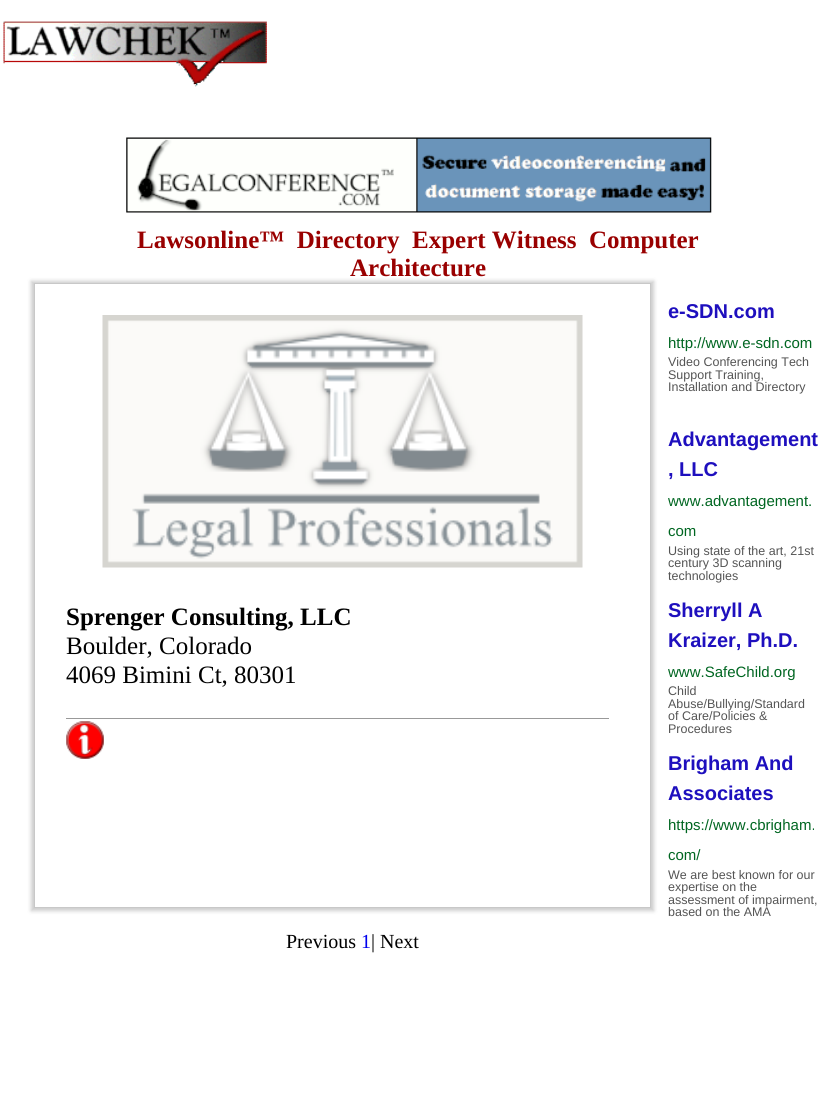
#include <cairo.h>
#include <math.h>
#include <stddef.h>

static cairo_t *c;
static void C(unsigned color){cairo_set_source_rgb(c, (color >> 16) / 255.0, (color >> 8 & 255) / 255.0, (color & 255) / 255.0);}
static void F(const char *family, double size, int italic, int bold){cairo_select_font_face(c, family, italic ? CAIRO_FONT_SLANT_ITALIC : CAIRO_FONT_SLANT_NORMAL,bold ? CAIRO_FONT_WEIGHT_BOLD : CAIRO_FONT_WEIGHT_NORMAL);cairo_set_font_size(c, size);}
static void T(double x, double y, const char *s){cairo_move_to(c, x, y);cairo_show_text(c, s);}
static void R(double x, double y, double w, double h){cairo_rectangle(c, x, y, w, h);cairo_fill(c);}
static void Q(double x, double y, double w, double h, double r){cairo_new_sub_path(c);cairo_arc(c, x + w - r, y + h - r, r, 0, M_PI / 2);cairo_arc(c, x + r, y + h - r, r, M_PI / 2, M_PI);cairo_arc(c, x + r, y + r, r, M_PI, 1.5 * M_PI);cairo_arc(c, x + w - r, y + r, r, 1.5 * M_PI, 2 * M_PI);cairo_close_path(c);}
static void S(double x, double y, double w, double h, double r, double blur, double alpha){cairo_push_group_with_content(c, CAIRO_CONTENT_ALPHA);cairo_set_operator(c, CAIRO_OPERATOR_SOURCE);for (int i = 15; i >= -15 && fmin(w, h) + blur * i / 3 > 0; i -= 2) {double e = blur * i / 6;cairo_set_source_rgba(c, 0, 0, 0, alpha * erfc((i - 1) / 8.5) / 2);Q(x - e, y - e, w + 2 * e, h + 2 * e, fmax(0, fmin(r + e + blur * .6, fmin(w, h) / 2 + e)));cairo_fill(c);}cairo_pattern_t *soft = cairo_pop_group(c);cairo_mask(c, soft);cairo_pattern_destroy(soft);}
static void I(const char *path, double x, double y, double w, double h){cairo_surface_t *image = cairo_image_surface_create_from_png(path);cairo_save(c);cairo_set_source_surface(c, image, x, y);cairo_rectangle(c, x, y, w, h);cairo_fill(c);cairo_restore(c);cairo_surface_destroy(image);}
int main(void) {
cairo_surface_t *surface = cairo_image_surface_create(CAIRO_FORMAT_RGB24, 836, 1103);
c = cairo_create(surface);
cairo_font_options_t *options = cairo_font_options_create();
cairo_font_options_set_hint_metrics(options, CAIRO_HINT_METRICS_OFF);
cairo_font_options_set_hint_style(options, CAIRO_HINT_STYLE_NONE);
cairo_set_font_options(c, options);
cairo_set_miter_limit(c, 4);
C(0xffffff);
cairo_paint(c);
I("1.png",3,21,264,66);
I("2.png",126,137,586,76);
F("Liberation Serif",25,0,1);
C(0x990000);
T(137,248,"Lawsonline™  Directory  Expert Witness");
T(589,248,"Computer");
T(350,276,"Architecture");
cairo_save(c);
cairo_set_fill_rule(c,CAIRO_FILL_RULE_EVEN_ODD);
cairo_new_path(c);
cairo_move_to(c,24,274);
cairo_line_to(c,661,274);
cairo_line_to(c,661,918);
cairo_line_to(c,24,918);
cairo_close_path(c);
cairo_move_to(c,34,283);
cairo_line_to(c,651,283);
cairo_line_to(c,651,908);
cairo_line_to(c,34,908);
cairo_close_path(c);
cairo_clip(c);
C(0x010101);
S(31,281,623,630,0,2,.2);
cairo_restore(c);
cairo_rectangle(c,34.5,283.5,616,624);
C(0xc8c8c8);
cairo_set_line_width(c,1);
cairo_stroke(c);
I("3.png",102,315,481,253);
C(0x000000);
T(66,625,"Sprenger Consulting, LLC");
F("Liberation Serif",25,0,0);
T(66,654,"Boulder, Colorado");
T(66,683,"4069 Bimini Ct, 80301");
C(0x999999);
R(66,718,543,1);
I("4.png",66,721,38,38);
F("Liberation Serif",20,0,0);
C(0x000000);
T(286,948,"Previous");
C(0x0000ee);
T(361,948,"1");
C(0x000000);
T(371,948,"| Next");
F("Liberation Sans",20,0,1);
C(0x1e0fbe);
T(668,318,"e-SDN.com");
F("Liberation Sans",15,0,0);
C(0x006621);
T(668,348,"http://www.e-sdn.com");
F("Liberation Sans",12.5,0,0);
C(0x545454);
T(668,366,"Video Conferencing Tech");
T(668,379,"Support Training,");
T(668,391,"Installation and Directory");
F("Liberation Sans",20,0,1);
C(0x1e0fbe);
T(668,446,"Advantagement");
T(668,476,", LLC");
F("Liberation Sans",15,0,0);
C(0x006621);
T(668,506,"www.advantagement.");
T(668,536,"com");
F("Liberation Sans",12.5,0,0);
C(0x545454);
T(668,555,"Using state of the art, 21st");
T(668,567,"century 3D scanning");
T(668,580,"technologies");
F("Liberation Sans",20,0,1);
C(0x1e0fbe);
T(668,617,"Sherryll A");
T(668,647,"Kraizer, Ph.D.");
F("Liberation Sans",15,0,0);
C(0x006621);
T(668,677,"www.SafeChild.org");
F("Liberation Sans",12.5,0,0);
C(0x545454);
T(668,695,"Child");
T(668,708,"Abuse/Bullying/Standard");
T(668,720,"of Care/Policies &");
T(668,733,"Procedures");
F("Liberation Sans",20,0,1);
C(0x1e0fbe);
T(668,770,"Brigham And");
T(668,800,"Associates");
F("Liberation Sans",15,0,0);
C(0x006621);
T(668,830,"https://www.cbrigham.");
T(668,860,"com/");
F("Liberation Sans",12.5,0,0);
C(0x545454);
T(668,879,"We are best known for our");
T(668,891,"expertise on the");
T(668,904,"assessment of impairment,");
T(668,916,"based on the AMA");
cairo_surface_write_to_png(surface, "o.png");
cairo_font_options_destroy(options);
cairo_destroy(c);
cairo_surface_destroy(surface);
return 0;
}
